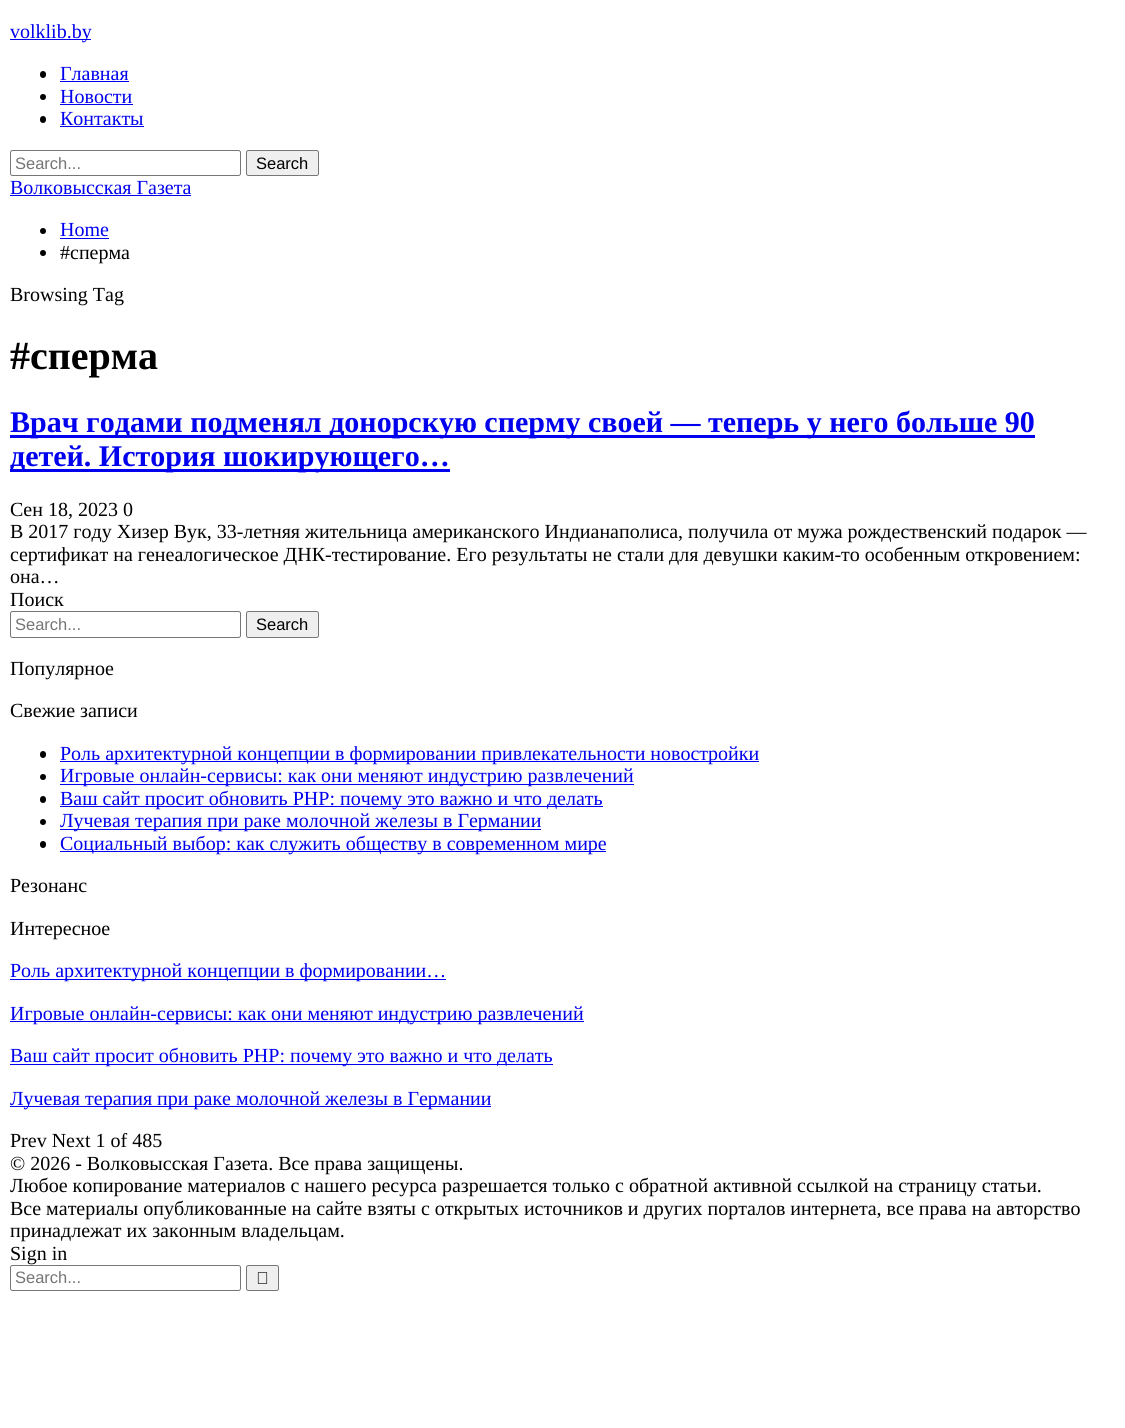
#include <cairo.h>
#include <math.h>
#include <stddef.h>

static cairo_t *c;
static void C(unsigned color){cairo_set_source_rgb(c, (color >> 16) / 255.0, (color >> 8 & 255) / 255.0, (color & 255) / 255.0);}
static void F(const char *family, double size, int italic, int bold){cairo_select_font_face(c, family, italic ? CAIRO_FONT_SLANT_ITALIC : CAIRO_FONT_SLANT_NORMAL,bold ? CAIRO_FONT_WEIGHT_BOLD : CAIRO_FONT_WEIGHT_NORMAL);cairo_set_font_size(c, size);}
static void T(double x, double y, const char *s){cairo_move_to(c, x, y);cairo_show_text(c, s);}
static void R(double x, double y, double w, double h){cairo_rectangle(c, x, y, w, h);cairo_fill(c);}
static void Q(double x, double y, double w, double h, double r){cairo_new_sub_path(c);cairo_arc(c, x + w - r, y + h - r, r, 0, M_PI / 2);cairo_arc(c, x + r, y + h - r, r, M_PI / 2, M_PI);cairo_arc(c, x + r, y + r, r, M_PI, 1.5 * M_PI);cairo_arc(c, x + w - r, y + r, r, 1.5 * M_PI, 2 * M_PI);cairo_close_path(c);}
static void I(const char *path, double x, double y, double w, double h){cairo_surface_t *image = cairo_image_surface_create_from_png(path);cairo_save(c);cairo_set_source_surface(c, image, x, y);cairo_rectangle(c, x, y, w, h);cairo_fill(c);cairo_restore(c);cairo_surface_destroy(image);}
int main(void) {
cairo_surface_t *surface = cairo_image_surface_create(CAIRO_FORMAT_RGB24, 1125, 1428);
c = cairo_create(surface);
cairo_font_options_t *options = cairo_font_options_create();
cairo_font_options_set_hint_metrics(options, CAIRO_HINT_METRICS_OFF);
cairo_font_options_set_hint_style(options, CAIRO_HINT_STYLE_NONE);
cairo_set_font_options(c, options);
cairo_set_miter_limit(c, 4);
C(0xffffff);
cairo_paint(c);
C(0x0000ee);
R(10,39,81,1);
F("Liberation Serif",20,0,0);
T(10,38,"volklib.by");
C(0x000000);
Q(40,71,6,7,3);
cairo_fill(c);
C(0x0000ee);
T(60,80,"Главная");
R(60,81,69,1);
C(0x000000);
cairo_new_path(c);
cairo_arc(c,43,97,3,0,2 * M_PI);
cairo_fill(c);
C(0x0000ee);
T(60,103,"Новости");
R(60,104,73,1);
C(0x000000);
Q(40,116,6,7,3);
cairo_fill(c);
C(0x0000ee);
T(60,125,"Контакты");
R(60,126,84,1);
Q(10.5,150.5,230,25,2);
C(0x767676);
cairo_set_line_width(c,1);
cairo_stroke(c);
F("Liberation Sans",16.5,0,0);
C(0x757575);
T(15,169,"Search...");
C(0xefefef);
Q(246.5,150.5,72,25,2);
cairo_fill_preserve(c);
C(0x767676);
cairo_stroke(c);
C(0x000000);
T(256,169,"Search");
F("Liberation Serif",20,0,0);
C(0x0000ee);
T(10,194,"Волковысская Газета");
R(10,195,181,1);
C(0x000000);
cairo_new_path(c);
cairo_arc(c,43,231,3,0,2 * M_PI);
cairo_fill(c);
C(0x0000ee);
T(60,236,"Home");
R(60,238,49,1);
C(0x000000);
cairo_new_path(c);
cairo_arc(c,43,253,3,0,2 * M_PI);
cairo_fill(c);
T(60,259,"#сперма");
T(10,301,"Browsing Tag");
F("Liberation Serif",40,0,1);
T(10,369,"#сперма");
C(0x0000ee);
R(10,435,1025,3);
F("Liberation Serif",30,0,1);
T(10,432,"Врач годами подменял донорскую сперму своей — теперь у него больше 90");
R(10,469,440,3);
T(10,466,"детей. История шокирующего…");
F("Liberation Serif",20,0,0);
C(0x000000);
T(10,516,"Сен 18, 2023 0");
T(10,538,"В 2017 году Хизер Вук, 33-летняя жительница американского Индианаполиса, получила от мужа рождественский подарок —");
T(10,561,"сертификат на генеалогическое ДНК-тестирование. Его результаты не стали для девушки каким-то особенным откровением:");
T(10,583,"она…");
T(10,606,"Поиск");
Q(10.5,611.5,230,26,2);
C(0x767676);
cairo_stroke(c);
F("Liberation Sans",16.5,0,0);
C(0x757575);
T(15,630,"Search...");
C(0xefefef);
Q(246.5,611.5,72,26,2);
cairo_fill_preserve(c);
C(0x767676);
cairo_stroke(c);
C(0x000000);
T(256,630,"Search");
F("Liberation Serif",20,0,0);
T(10,675,"Популярное");
T(10,717,"Свежие записи");
Q(40,751,6,7,3);
cairo_fill(c);
C(0x0000ee);
R(60,761,699,1);
T(60,760,"Роль архитектурной концепции в формировании привлекательности новостройки");
C(0x000000);
cairo_new_path(c);
cairo_arc(c,43,777,3,0,2 * M_PI);
cairo_fill(c);
C(0x0000ee);
R(60,784,574,1);
T(60,782,"Игровые онлайн-сервисы: как они меняют индустрию развлечений");
C(0x000000);
Q(40,796,6,7,3);
cairo_fill(c);
C(0x0000ee);
R(60,806,543,1);
T(60,805,"Ваш сайт просит обновить PHP: почему это важно и что делать");
C(0x000000);
cairo_new_path(c);
cairo_arc(c,43,822,3,0,2 * M_PI);
cairo_fill(c);
C(0x0000ee);
R(60,829,481,1);
T(60,827,"Лучевая терапия при раке молочной железы в Германии");
C(0x000000);
Q(40,841,6,7,3);
cairo_fill(c);
C(0x0000ee);
R(60,851,546,1);
T(60,850,"Социальный выбор: как служить обществу в современном мире");
C(0x000000);
T(10,892,"Резонанс");
T(10,935,"Интересное");
C(0x0000ee);
R(10,979,436,1);
T(10,977,"Роль архитектурной концепции в формировании…");
R(10,1021,574,1);
T(10,1020,"Игровые онлайн-сервисы: как они меняют индустрию развлечений");
R(10,1064,543,1);
T(10,1062,"Ваш сайт просит обновить PHP: почему это важно и что делать");
R(10,1106,481,1);
T(10,1105,"Лучевая терапия при раке молочной железы в Германии");
C(0x000000);
T(10,1147,"Prev Next 1 of 485");
T(10,1170,"© 2026 - Волковысская Газета. Все права защищены.");
T(10,1192,"Любое копирование материалов с нашего ресурса разрешается только с обратной активной ссылкой на страницу статьи.");
T(10,1215,"Все материалы опубликованные на сайте взяты с открытых источников и других порталов интернета, все права на авторство");
T(10,1237,"принадлежат их законным владельцам.");
T(10,1260,"Sign in");
Q(10.5,1265.5,230,25,2);
C(0x767676);
cairo_stroke(c);
F("Liberation Sans",16.5,0,0);
C(0x757575);
T(15,1283,"Search...");
C(0xefefef);
Q(246.5,1265.5,32,25,2);
cairo_fill_preserve(c);
C(0x767676);
cairo_stroke(c);
I("1.png",257,1272,11,12);
cairo_surface_write_to_png(surface, "o.png");
cairo_font_options_destroy(options);
cairo_destroy(c);
cairo_surface_destroy(surface);
return 0;
}
